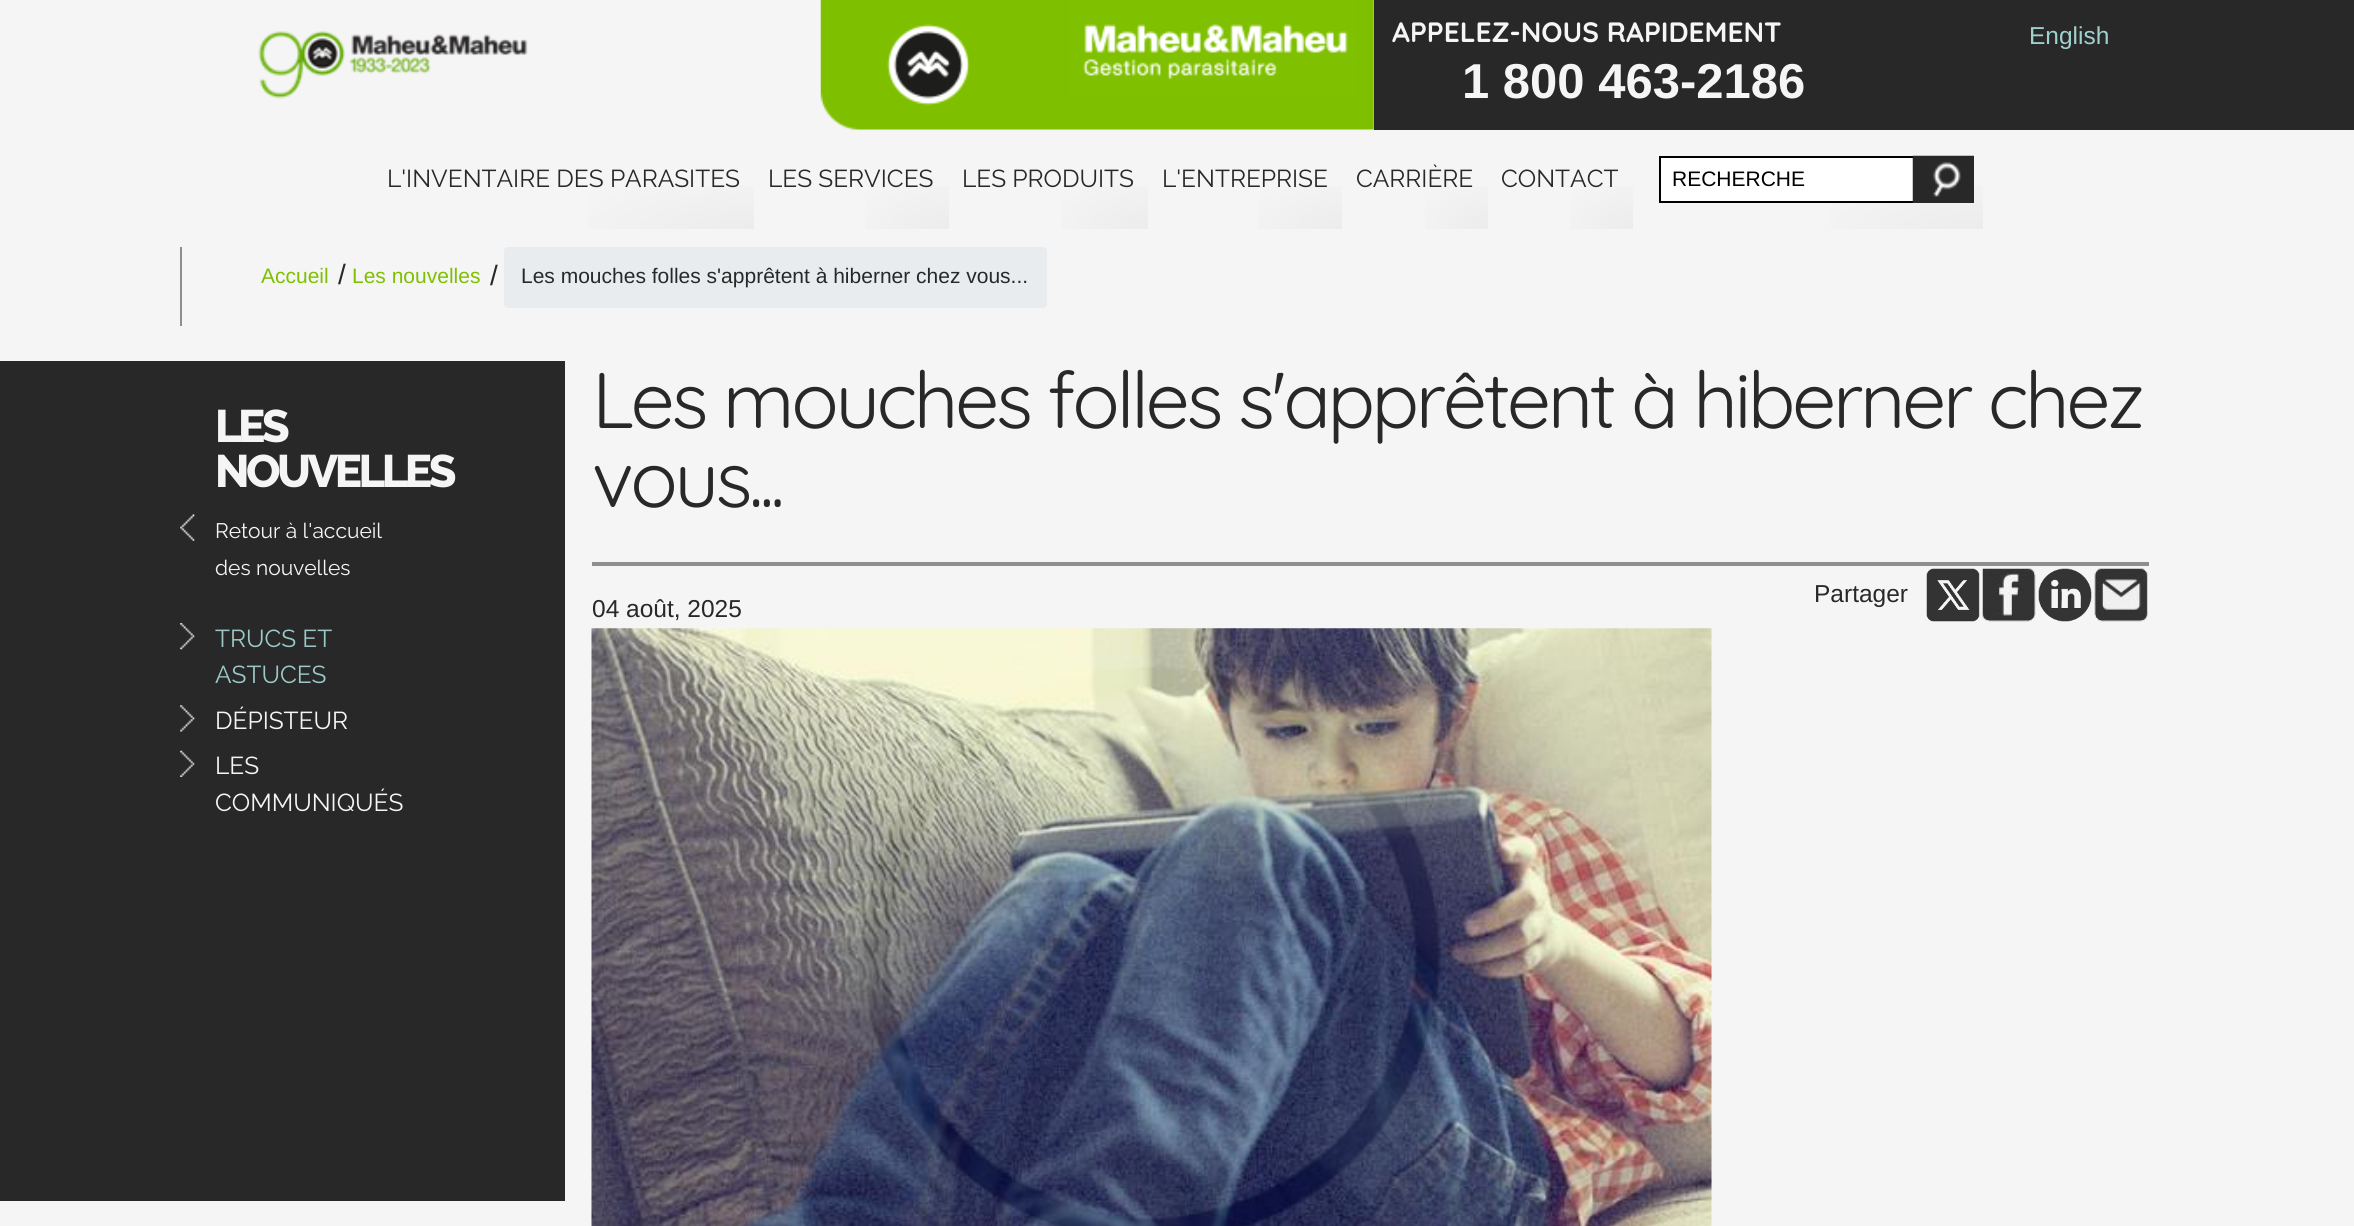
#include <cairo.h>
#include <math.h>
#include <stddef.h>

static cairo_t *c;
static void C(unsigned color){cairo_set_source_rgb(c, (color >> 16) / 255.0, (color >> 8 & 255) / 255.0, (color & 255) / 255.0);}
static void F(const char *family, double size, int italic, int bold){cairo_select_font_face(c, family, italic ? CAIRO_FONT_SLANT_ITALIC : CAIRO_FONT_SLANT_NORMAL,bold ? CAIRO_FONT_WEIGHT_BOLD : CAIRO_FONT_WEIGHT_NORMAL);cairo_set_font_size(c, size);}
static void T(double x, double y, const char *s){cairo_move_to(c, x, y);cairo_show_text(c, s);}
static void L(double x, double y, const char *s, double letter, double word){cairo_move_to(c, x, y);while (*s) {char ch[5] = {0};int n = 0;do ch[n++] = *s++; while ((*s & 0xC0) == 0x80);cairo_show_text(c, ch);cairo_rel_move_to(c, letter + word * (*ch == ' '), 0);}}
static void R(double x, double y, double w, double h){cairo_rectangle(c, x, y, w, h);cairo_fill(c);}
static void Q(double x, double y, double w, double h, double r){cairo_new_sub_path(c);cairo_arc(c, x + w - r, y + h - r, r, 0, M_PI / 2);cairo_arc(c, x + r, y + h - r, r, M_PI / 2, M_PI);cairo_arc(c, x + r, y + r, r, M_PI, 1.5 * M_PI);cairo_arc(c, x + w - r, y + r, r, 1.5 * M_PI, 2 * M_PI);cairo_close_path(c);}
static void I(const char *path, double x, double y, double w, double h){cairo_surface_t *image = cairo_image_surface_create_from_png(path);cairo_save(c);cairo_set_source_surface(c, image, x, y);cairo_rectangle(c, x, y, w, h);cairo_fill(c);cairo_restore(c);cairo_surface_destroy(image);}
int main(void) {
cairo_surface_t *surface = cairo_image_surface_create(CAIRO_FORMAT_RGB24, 2354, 1226);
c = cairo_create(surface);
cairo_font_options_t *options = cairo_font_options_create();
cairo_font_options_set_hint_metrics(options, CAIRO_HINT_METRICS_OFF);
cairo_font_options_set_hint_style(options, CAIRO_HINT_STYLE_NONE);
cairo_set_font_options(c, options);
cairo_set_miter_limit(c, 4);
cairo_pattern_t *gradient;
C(0xf5f5f5);
cairo_paint(c);
I("1.png",258,31,270,68);
I("2.png",820,0,554,130);
C(0x282828);
R(1374,0,980,130);
F("Quicksand",28,0,1);
C(0xf5f5f5);
T(1392,42,"APPELEZ-NOUS RAPIDEMENT");
F("Liberation Sans",49,0,1);
T(1462,98,"1 800 463-2186");
F("Liberation Sans",24.5,0,0);
C(0xa0d1cf);
T(2029,44,"English");
gradient = cairo_pattern_create_radial(0,0,0,0,0,1);
cairo_pattern_set_matrix(gradient, &(cairo_matrix_t){1.0 / 382, 0, 0, 1.0 / 100, -1.0 * 754 / 382, -1.0 * 229 / 100});
cairo_pattern_add_color_stop_rgba(gradient,0,0.929,0.925,0.925,1);
cairo_pattern_add_color_stop_rgba(gradient,.6,0.961,0.961,0.961,1);
cairo_set_source(c,gradient);
cairo_pattern_destroy(gradient);
R(588,186,166,43);
F("Raleway",24.5,0,0);
C(0x282828);
T(387,187,"L'INVENTAIRE DES PARASITES");
gradient = cairo_pattern_create_radial(0,0,0,0,0,1);
cairo_pattern_set_matrix(gradient, &(cairo_matrix_t){1.0 / 194, 0, 0, 1.0 / 100, -1.0 * 949 / 194, -1.0 * 229 / 100});
cairo_pattern_add_color_stop_rgba(gradient,0,0.929,0.925,0.925,1);
cairo_pattern_add_color_stop_rgba(gradient,.6,0.961,0.961,0.961,1);
cairo_set_source(c,gradient);
cairo_pattern_destroy(gradient);
R(865,186,84,43);
C(0x282828);
T(768,187,"LES SERVICES");
gradient = cairo_pattern_create_radial(0,0,0,0,0,1);
cairo_pattern_set_matrix(gradient, &(cairo_matrix_t){1.0 / 200, 0, 0, 1.0 / 100, -1.0 * 1148 / 200, -1.0 * 229 / 100});
cairo_pattern_add_color_stop_rgba(gradient,0,0.929,0.925,0.925,1);
cairo_pattern_add_color_stop_rgba(gradient,.6,0.961,0.961,0.961,1);
cairo_set_source(c,gradient);
cairo_pattern_destroy(gradient);
R(1061,186,87,43);
C(0x282828);
T(962,187,"LES PRODUITS");
gradient = cairo_pattern_create_radial(0,0,0,0,0,1);
cairo_pattern_set_matrix(gradient, &(cairo_matrix_t){1.0 / 194, 0, 0, 1.0 / 100, -1.0 * 1342 / 194, -1.0 * 229 / 100});
cairo_pattern_add_color_stop_rgba(gradient,0,0.929,0.925,0.925,1);
cairo_pattern_add_color_stop_rgba(gradient,.6,0.961,0.961,0.961,1);
cairo_set_source(c,gradient);
cairo_pattern_destroy(gradient);
R(1258,186,84,43);
C(0x282828);
T(1162,187,"L'ENTREPRISE");
gradient = cairo_pattern_create_radial(0,0,0,0,0,1);
cairo_pattern_set_matrix(gradient, &(cairo_matrix_t){1.0 / 145, 0, 0, 1.0 / 100, -1.0 * 1488 / 145, -1.0 * 229 / 100});
cairo_pattern_add_color_stop_rgba(gradient,0,0.929,0.925,0.925,1);
cairo_pattern_add_color_stop_rgba(gradient,.6,0.961,0.961,0.961,1);
cairo_set_source(c,gradient);
cairo_pattern_destroy(gradient);
R(1425,186,63,43);
C(0x282828);
T(1356,187,"CARRIÈRE");
gradient = cairo_pattern_create_radial(0,0,0,0,0,1);
cairo_pattern_set_matrix(gradient, &(cairo_matrix_t){1.0 / 145, 0, 0, 1.0 / 100, -1.0 * 1633 / 145, -1.0 * 229 / 100});
cairo_pattern_add_color_stop_rgba(gradient,0,0.929,0.925,0.925,1);
cairo_pattern_add_color_stop_rgba(gradient,.6,0.961,0.961,0.961,1);
cairo_set_source(c,gradient);
cairo_pattern_destroy(gradient);
R(1570,186,63,43);
C(0x282828);
T(1501,187,"CONTACT");
gradient = cairo_pattern_create_radial(0,0,0,0,0,1);
cairo_pattern_set_matrix(gradient, &(cairo_matrix_t){1.0 / 350, 0, 0, 1.0 / 100, -1.0 * 1983 / 350, -1.0 * 229 / 100});
cairo_pattern_add_color_stop_rgba(gradient,0,0.929,0.925,0.925,1);
cairo_pattern_add_color_stop_rgba(gradient,.6,0.961,0.961,0.961,1);
cairo_set_source(c,gradient);
cairo_pattern_destroy(gradient);
R(1831,186,152,43);
C(0xffffff);
R(1661,158,252,43);
cairo_rectangle(c,1660,157,261,45);
C(0x000000);
cairo_stroke(c);
F("Liberation Sans",21,0,0);
T(1672,186,"RECHERCHE");
C(0xffffff);
R(1932,160,30,37);
I("3.png",1912,155,62,48);
C(0x8e8e8e);
R(180,247,2,79);
C(0x7ec000);
T(261,283,"Accueil");
F("Liberation Sans",28,0,0);
C(0x282828);
T(338,284,"/");
F("Liberation Sans",21,0,0);
C(0x7ec000);
T(352,283,"Les nouvelles");
F("Liberation Sans",28,0,0);
C(0x282828);
T(490,285,"/");
C(0xe9ecef);
Q(504,247,543,61,4);
cairo_fill(c);
F("Liberation Sans",21,0,0);
C(0x282828);
T(521,283,"Les mouches folles s'apprêtent à hiberner chez vous...");
R(0,361,565,840);
F("Raleway ExtraBold",45.5,0,0);
C(0xf5f5f5);
L(215,442,"LES",-3.5,0);
L(215,487,"NOUVELLES",-3.5,0);
I("4.png",180,514,15,27);
F("Raleway",21,0,0);
T(215,538,"Retour à l'accueil");
T(215,575,"des nouvelles");
I("5.png",180,623,15,27);
F("Raleway",24.5,0,0);
C(0x9ac9c7);
T(215,647,"TRUCS ET");
T(215,683,"ASTUCES");
I("6.png",180,705,15,27);
C(0xf5f5f5);
T(215,729,"DÉPISTEUR");
I("7.png",180,750,15,27);
T(215,774,"LES");
T(215,811,"COMMUNIQUÉS");
F("Quicksand",78.75,0,0);
C(0x282828);
L(592,428,"Les mouches folles s'apprêtent à hiberner chez",-3.5,0);
L(592,507,"vous...",-3.5,0);
C(0x8e8e8e);
R(592,562,1557,4);
F("Liberation Sans",24.5,0,0);
C(0x282828);
T(592,617,"04 août, 2025");
T(1814,602,"Partager");
I("8.png",1926,568,54,54);
I("9.png",1982,568,54,54);
I("10.png",2038,568,54,54);
I("11.png",2094,568,54,54);
I("12.png",591,628,1121,598);
cairo_surface_write_to_png(surface, "o.png");
cairo_font_options_destroy(options);
cairo_destroy(c);
cairo_surface_destroy(surface);
return 0;
}
